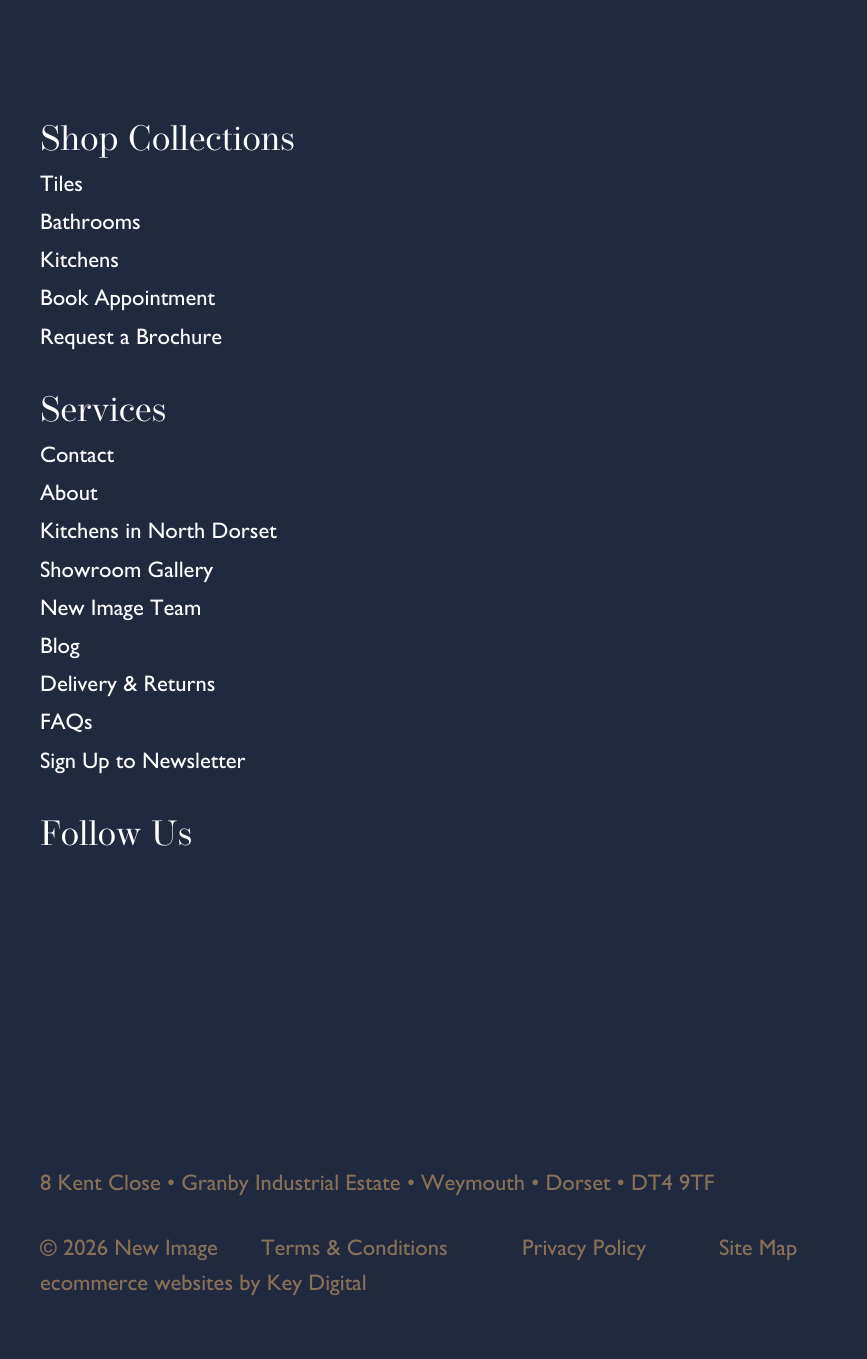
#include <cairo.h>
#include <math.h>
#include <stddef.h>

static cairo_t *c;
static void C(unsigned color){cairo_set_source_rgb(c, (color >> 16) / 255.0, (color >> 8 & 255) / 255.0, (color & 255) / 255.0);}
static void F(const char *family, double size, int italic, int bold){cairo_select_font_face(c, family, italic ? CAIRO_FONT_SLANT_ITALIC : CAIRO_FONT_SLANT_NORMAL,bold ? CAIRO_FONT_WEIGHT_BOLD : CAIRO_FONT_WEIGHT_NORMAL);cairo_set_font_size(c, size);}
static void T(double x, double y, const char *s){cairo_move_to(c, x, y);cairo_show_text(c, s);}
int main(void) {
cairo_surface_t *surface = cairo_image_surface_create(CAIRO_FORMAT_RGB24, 867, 1359);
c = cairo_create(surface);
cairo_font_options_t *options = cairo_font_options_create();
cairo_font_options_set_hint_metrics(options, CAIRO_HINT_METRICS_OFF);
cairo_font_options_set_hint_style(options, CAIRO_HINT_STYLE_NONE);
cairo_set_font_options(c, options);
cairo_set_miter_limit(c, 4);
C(0x21293f);
cairo_paint(c);
F("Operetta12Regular",35,0,0);
C(0xffffff);
T(40,150,"Shop Collections");
F("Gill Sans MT",22.5,0,0);
T(40,191,"Tiles");
T(40,229,"Bathrooms");
T(40,267,"Kitchens");
T(40,305,"Book Appointment");
T(40,344,"Request a Brochure");
F("Operetta12Regular",35,0,0);
T(40,421,"Services");
F("Gill Sans MT",22.5,0,0);
T(40,462,"Contact");
T(40,500,"About");
T(40,538,"Kitchens in North Dorset");
T(40,577,"Showroom Gallery");
T(40,615,"New Image Team");
T(40,653,"Blog");
T(40,691,"Delivery & Returns");
T(40,729,"FAQs");
T(40,768,"Sign Up to Newsletter");
F("Operetta12Regular",35,0,0);
T(40,845,"Follow Us");
F("Gill Sans MT",22.5,0,0);
C(0x887157);
T(40,1190,"8 Kent Close • Granby Industrial Estate • Weymouth • Dorset • DT4 9TF");
T(40,1255,"© 2026 New Image");
T(261,1255,"Terms & Conditions");
T(522,1255,"Privacy Policy");
T(719,1255,"Site Map");
T(40,1290,"ecommerce websites by Key Digital");
cairo_surface_write_to_png(surface, "o.png");
cairo_font_options_destroy(options);
cairo_destroy(c);
cairo_surface_destroy(surface);
return 0;
}
